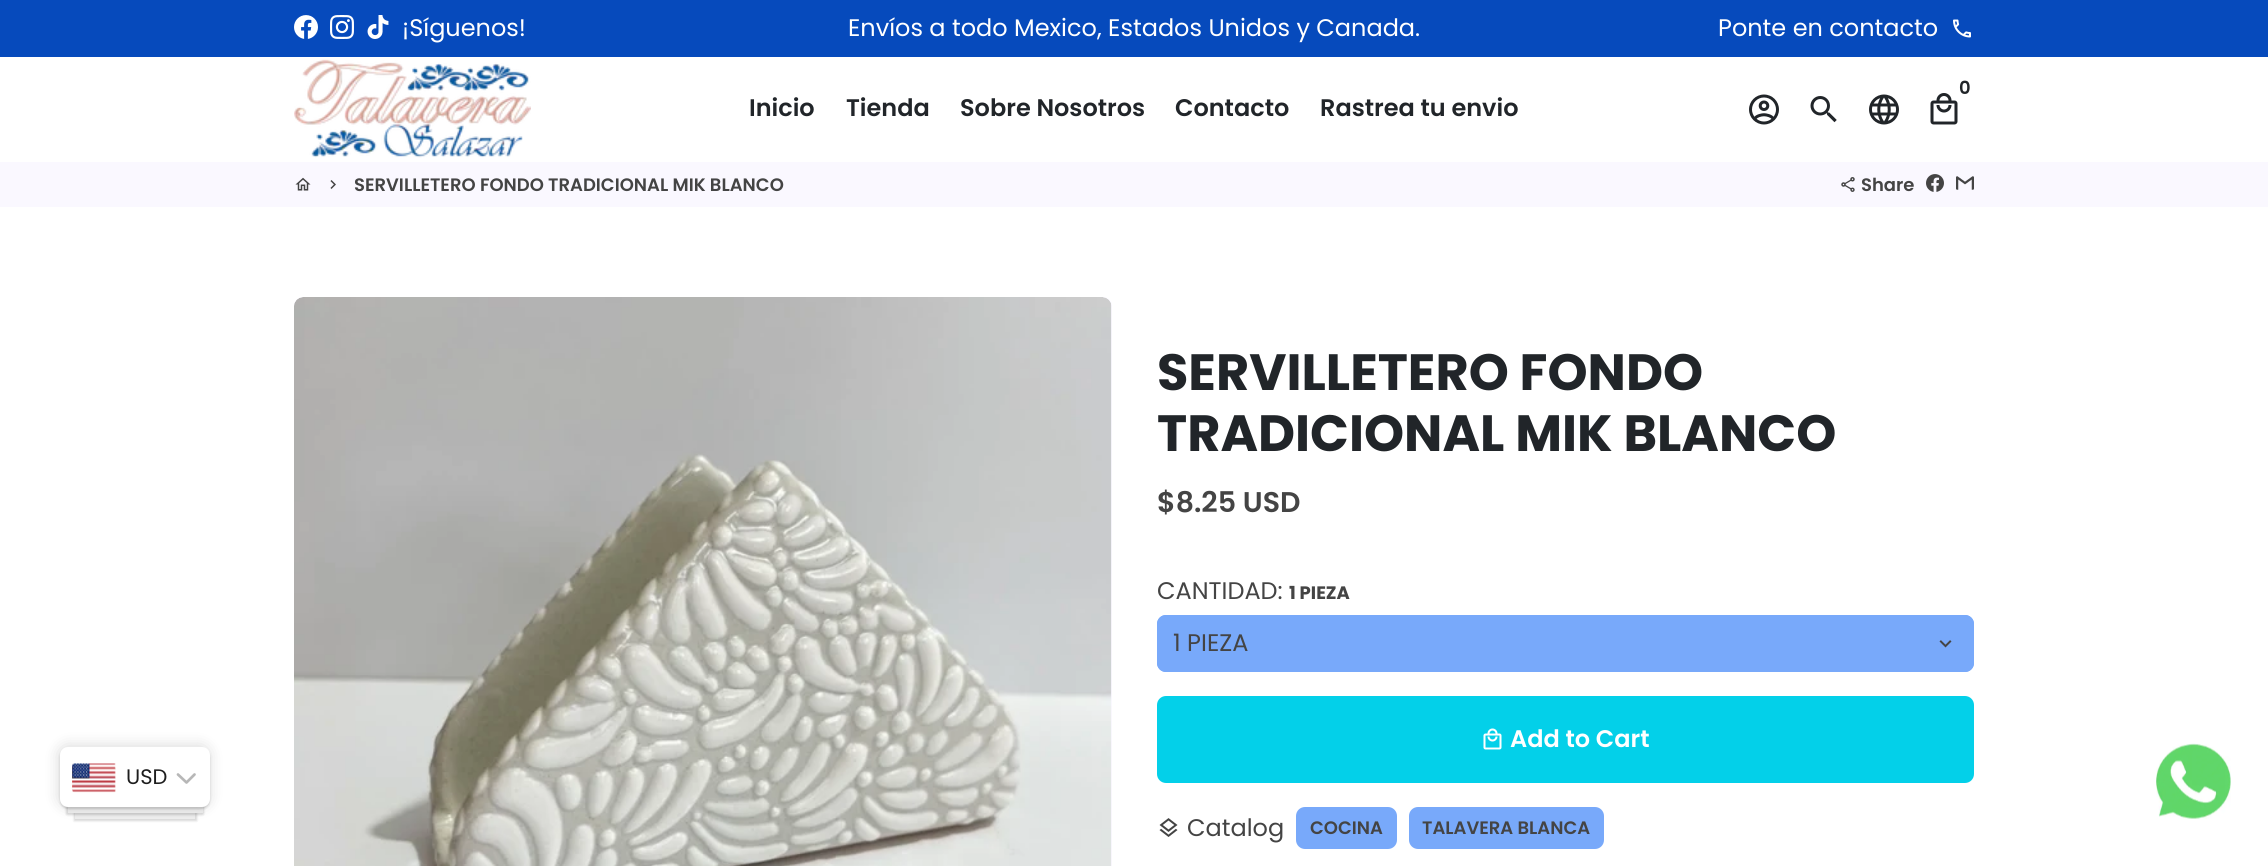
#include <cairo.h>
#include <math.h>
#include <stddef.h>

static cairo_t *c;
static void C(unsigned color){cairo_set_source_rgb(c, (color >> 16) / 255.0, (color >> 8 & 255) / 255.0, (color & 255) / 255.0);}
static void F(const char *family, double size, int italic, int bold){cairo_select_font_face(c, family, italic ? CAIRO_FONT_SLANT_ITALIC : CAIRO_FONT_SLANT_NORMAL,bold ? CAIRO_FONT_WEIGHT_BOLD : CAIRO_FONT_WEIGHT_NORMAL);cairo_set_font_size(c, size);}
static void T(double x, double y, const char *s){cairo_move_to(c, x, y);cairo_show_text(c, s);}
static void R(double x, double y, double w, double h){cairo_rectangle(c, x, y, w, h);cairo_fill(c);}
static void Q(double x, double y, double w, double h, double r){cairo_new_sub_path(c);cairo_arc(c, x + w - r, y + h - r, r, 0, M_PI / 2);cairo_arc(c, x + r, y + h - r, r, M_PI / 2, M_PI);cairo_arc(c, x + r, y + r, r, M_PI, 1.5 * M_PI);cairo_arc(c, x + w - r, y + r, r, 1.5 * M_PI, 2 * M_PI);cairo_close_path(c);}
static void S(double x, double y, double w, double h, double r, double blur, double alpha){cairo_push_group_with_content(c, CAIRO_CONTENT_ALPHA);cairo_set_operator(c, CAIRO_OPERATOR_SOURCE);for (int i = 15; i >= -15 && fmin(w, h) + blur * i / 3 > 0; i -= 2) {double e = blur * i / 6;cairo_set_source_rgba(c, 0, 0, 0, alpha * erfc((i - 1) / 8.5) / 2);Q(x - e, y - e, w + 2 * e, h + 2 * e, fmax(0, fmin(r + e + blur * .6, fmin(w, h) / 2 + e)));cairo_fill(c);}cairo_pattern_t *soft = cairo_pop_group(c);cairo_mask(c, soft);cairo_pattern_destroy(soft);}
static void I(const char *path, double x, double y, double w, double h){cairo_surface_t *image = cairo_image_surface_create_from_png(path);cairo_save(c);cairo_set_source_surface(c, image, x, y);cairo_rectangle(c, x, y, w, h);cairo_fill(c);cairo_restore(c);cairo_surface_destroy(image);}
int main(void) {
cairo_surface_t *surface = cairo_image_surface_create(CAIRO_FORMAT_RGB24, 2268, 866);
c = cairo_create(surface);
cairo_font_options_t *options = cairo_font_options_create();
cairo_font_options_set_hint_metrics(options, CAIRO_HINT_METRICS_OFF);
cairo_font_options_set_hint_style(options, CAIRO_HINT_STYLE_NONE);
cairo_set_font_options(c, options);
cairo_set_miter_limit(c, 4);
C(0xffffff);
cairo_paint(c);
C(0x000000);
S(74,788,123,33,0,1,.15);
C(0xeeeeee);
R(75,813,120,6);
C(0x000000);
S(66,767,138,48,1.5,1,.15);
C(0xeeeeee);
R(68,807,135,6);
C(0x000000);
S(60,749,150,60,8,1,.15);
S(59,746,150,60,8,7.5,.15);
C(0xffffff);
Q(60,747,150,60,8);
cairo_fill(c);
I("1.png",72,763,44,30);
F("Poppins",21,0,0);
C(0x1e1e1e);
T(126,784,"USD");
cairo_new_path(c);
cairo_move_to(c,178,774.5);
cairo_line_to(c,186.5,782.5);
cairo_line_to(c,194.5,774.5);
C(0xb7b7b7);
cairo_set_line_width(c,2.7);
cairo_set_line_cap(c,CAIRO_LINE_CAP_ROUND);
cairo_set_line_join(c,CAIRO_LINE_JOIN_ROUND);
cairo_stroke(c);
C(0x064abc);
R(0,0,2268,57);
I("2.png",294,15,24,24);
I("3.png",330,15,24,24);
I("4.png",367,15,22,24);
F("Poppins",24,0,0);
C(0xffffff);
T(402,36,"¡Síguenos!");
T(848,36,"Envíos a todo Mexico, Estados Unidos y Canada.");
T(1718,36,"Ponte en contacto");
I("5.png",1953,19,18,19);
I("6.png",294,59,237,99);
F("Poppins SemiBold",18,0,0);
C(0x212529);
T(1959,94,"0");
I("7.png",1930,93,28,32);
I("8.png",1749,94,30,31);
I("9.png",1810,96,27,27);
I("10.png",1869,94,30,31);
F("Poppins SemiBold",24,0,0);
T(749,116,"Inicio");
T(846,116,"Tienda");
T(960,116,"Sobre Nosotros");
T(1175,116,"Contacto");
T(1320,116,"Rastrea tu envio");
C(0xfaf8ff);
R(0,162,2268,45);
I("11.png",295,177,16,14);
I("12.png",330,180,6,9);
F("Poppins SemiBold",18,0,0);
C(0x444444);
T(354,191,"SERVILLETERO FONDO TRADICIONAL MIK BLANCO");
I("13.png",1841,177,14,15);
T(1861,191,"Share");
I("14.png",1926,174,18,18);
I("15.png",1956,176,18,14);
C(0xfaf8ff);
Q(294,297,818,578,9);
cairo_fill(c);
I("16.png",294,297,818,569);
F("Poppins",51,0,1);
C(0x212529);
T(1157,390,"SERVILLETERO FONDO");
T(1157,451,"TRADICIONAL MIK BLANCO");
F("Poppins SemiBold",28.5,0,0);
C(0x444444);
T(1157,512,"$8.25 USD");
F("Poppins",24,0,0);
T(1157,599,"CANTIDAD:");
F("Poppins",18,0,1);
T(1289,599,"1 PIEZA");
C(0x78a9fa);
Q(1157,615,817,57,9);
cairo_fill(c);
I("17.png",1939,640,13,8);
Q(1158,616,815,55,8);
cairo_set_line_width(c,2);
cairo_set_line_cap(c,CAIRO_LINE_CAP_BUTT);
cairo_set_line_join(c,CAIRO_LINE_JOIN_MITER);
cairo_stroke(c);
F("Poppins",24,0,0);
C(0x444444);
T(1173,651,"1 PIEZA");
C(0x03d0e9);
Q(1158,697,815,85,8);
cairo_fill_preserve(c);
cairo_stroke(c);
I("18.png",1483,728,19,22);
F("Poppins SemiBold",24,0,0);
C(0xffffff);
T(1510,747,"Add to Cart");
I("19.png",1159,818,19,19);
F("Poppins",24,0,0);
C(0x444444);
T(1187,836,"Catalog");
C(0x78a9fa);
Q(1297,808,99,40,8);
cairo_fill_preserve(c);
cairo_stroke(c);
F("Poppins SemiBold",18,0,0);
C(0x444444);
T(1310,834,"COCINA");
C(0x78a9fa);
Q(1410,808,193,40,8);
cairo_fill_preserve(c);
cairo_stroke(c);
C(0x444444);
T(1422,834,"TALAVERA BLANCA");
I("20.png",2156,743,75,76);
cairo_surface_write_to_png(surface, "o.png");
cairo_font_options_destroy(options);
cairo_destroy(c);
cairo_surface_destroy(surface);
return 0;
}
